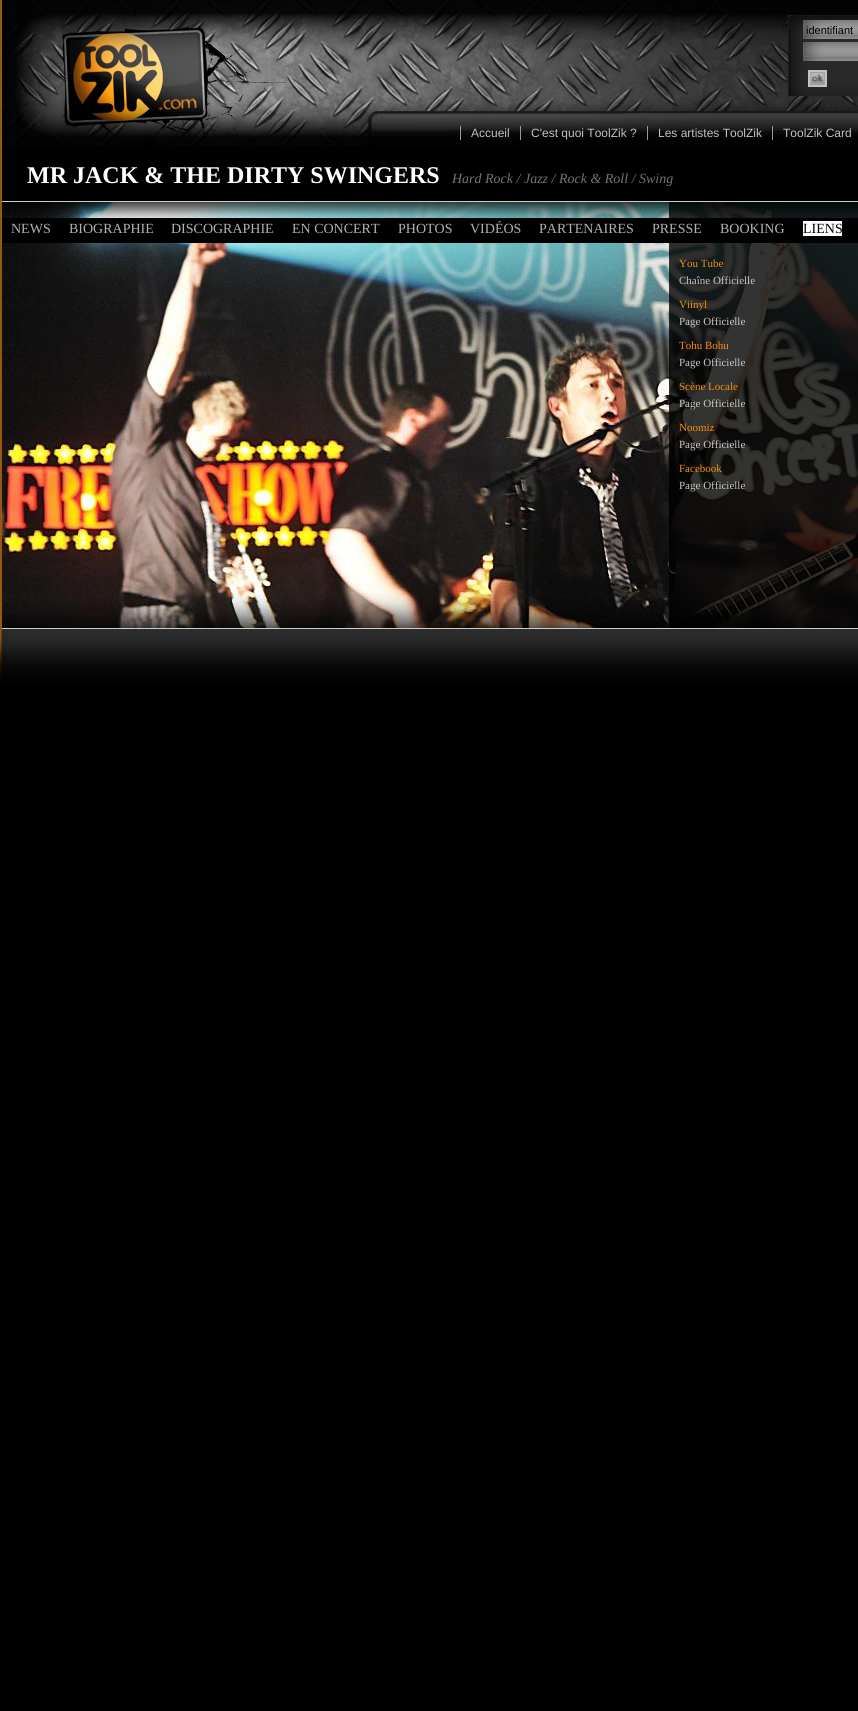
#include <cairo.h>
#include <math.h>
#include <stddef.h>

static cairo_t *c;
static void C(unsigned color){cairo_set_source_rgb(c, (color >> 16) / 255.0, (color >> 8 & 255) / 255.0, (color & 255) / 255.0);}
static void F(const char *family, double size, int italic, int bold){cairo_select_font_face(c, family, italic ? CAIRO_FONT_SLANT_ITALIC : CAIRO_FONT_SLANT_NORMAL,bold ? CAIRO_FONT_WEIGHT_BOLD : CAIRO_FONT_WEIGHT_NORMAL);cairo_set_font_size(c, size);}
static void T(double x, double y, const char *s){cairo_move_to(c, x, y);cairo_show_text(c, s);}
static void R(double x, double y, double w, double h){cairo_rectangle(c, x, y, w, h);cairo_fill(c);}
static void I(const char *path, double x, double y, double w, double h){cairo_surface_t *image = cairo_image_surface_create_from_png(path);cairo_save(c);cairo_set_source_surface(c, image, x, y);cairo_rectangle(c, x, y, w, h);cairo_fill(c);cairo_restore(c);cairo_surface_destroy(image);}
int main(void) {
cairo_surface_t *surface = cairo_image_surface_create(CAIRO_FORMAT_RGB24, 858, 1711);
c = cairo_create(surface);
cairo_font_options_t *options = cairo_font_options_create();
cairo_font_options_set_hint_metrics(options, CAIRO_HINT_METRICS_OFF);
cairo_font_options_set_hint_style(options, CAIRO_HINT_STYLE_NONE);
cairo_set_font_options(c, options);
cairo_set_miter_limit(c, 4);
C(0x000000);
cairo_paint(c);
I("1.png",2,0,856,147);
I("2.png",788,15,70,81);
I("3.png",803,20,55,19);
F("Liberation Sans",11,0,0);
C(0x000000);
T(806,34,"identifiant");
I("3.png",803,42,55,19);
I("4.png",808,70,19,17);
C(0x999999);
R(460,126,1,14);
F("Liberation Sans",12,0,0);
C(0xc2c2c2);
T(471,137,"Accueil");
C(0x999999);
R(520,126,1,14);
C(0xc2c2c2);
T(531,137,"C'est quoi ToolZik ?");
C(0x999999);
R(647,126,1,14);
C(0xc2c2c2);
T(658,137,"Les artistes ToolZik");
C(0x999999);
R(772,126,1,14);
C(0xc2c2c2);
T(783,137,"ToolZik Card");
C(0x96590f);
R(0,0,2,629);
F("Liberation Serif",24,0,1);
C(0xffffff);
T(27,183,"MR JACK & THE DIRTY SWINGERS");
F("Liberation Serif",14,1,0);
C(0x737373);
T(452,183,"Hard Rock / Jazz / Rock & Roll / Swing");
I("5.png",2,202,856,426);
C(0xcdcdcd);
R(2,201,856,1);
R(2,628,856,1);
I("6.png",2,202,856,426);
cairo_set_source_rgba(c,0,0,0,0.8);
R(669,202,189,426);
C(0x000000);
R(2,218,856,25);
F("Liberation Serif",14,0,0);
C(0xb2b2b2);
T(11,233,"NEWS");
T(69,233,"BIOGRAPHIE");
T(171,233,"DISCOGRAPHIE");
T(292,233,"EN CONCERT");
T(398,233,"PHOTOS");
T(470,233,"VIDÉOS");
T(539,233,"PARTENAIRES");
T(652,233,"PRESSE");
T(720,233,"BOOKING");
C(0xffffff);
R(803,221,39,15);
C(0x000000);
T(803,233,"LIENS");
F("Liberation Serif",11,0,0);
C(0xf28f18);
T(679,267,"You Tube");
C(0xc9c9c9);
T(679,284,"Chaîne Officielle");
C(0xf28f18);
T(679,308,"Viinyl");
C(0xc9c9c9);
T(679,325,"Page Officielle");
C(0xf28f18);
T(679,349,"Tohu Bohu");
C(0xc9c9c9);
T(679,366,"Page Officielle");
C(0xf28f18);
T(679,390,"Scène Locale");
C(0xc9c9c9);
T(679,407,"Page Officielle");
C(0xf28f18);
T(679,431,"Noomiz");
C(0xc9c9c9);
T(679,448,"Page Officielle");
C(0xf28f18);
T(679,472,"Facebook");
C(0xc9c9c9);
T(679,489,"Page Officielle");
I("7.png",0,629,858,55);
cairo_surface_write_to_png(surface, "o.png");
cairo_font_options_destroy(options);
cairo_destroy(c);
cairo_surface_destroy(surface);
return 0;
}
